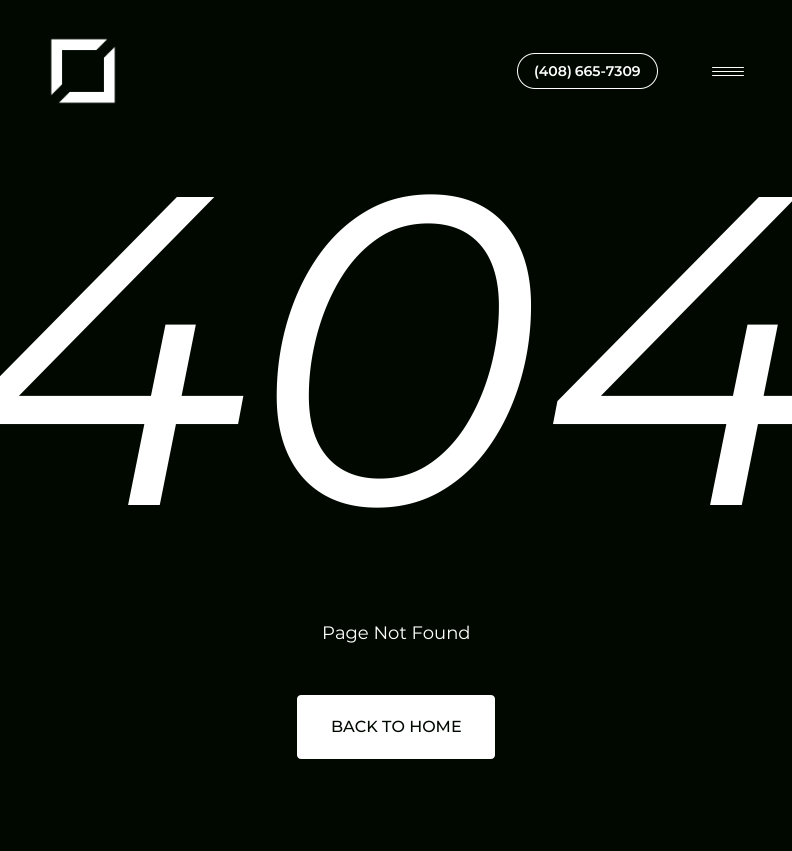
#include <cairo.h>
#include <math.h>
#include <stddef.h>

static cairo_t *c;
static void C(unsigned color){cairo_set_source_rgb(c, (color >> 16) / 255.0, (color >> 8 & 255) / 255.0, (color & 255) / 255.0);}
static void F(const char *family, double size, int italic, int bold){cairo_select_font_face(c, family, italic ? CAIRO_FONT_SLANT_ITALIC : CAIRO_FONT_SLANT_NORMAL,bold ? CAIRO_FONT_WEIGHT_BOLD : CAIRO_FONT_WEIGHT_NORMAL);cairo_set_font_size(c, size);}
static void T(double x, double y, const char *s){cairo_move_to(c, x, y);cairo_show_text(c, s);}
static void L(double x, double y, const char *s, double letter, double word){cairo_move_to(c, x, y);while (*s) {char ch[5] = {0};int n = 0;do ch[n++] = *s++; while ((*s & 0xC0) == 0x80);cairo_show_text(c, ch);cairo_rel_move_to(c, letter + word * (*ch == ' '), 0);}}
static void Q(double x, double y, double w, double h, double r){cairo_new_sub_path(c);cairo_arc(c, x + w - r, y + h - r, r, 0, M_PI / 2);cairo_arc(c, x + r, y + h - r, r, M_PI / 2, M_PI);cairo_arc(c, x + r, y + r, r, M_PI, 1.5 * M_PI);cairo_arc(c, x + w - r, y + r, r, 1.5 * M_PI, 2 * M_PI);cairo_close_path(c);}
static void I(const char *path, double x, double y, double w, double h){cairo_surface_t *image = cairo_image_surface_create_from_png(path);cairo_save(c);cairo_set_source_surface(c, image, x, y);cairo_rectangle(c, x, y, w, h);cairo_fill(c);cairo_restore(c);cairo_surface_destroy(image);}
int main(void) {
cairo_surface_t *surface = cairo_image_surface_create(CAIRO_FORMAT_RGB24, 792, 851);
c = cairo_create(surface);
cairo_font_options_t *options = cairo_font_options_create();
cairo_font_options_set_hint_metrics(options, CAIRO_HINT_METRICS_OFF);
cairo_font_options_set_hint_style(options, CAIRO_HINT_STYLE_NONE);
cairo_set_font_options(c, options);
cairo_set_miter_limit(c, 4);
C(0x000800);
cairo_paint(c);
I("1.png",50,38,66,66);
Q(517.5,53.5,140,35,17.5);
C(0xffffff);
cairo_set_line_width(c,1);
cairo_stroke(c);
F("Montserrat SemiBold",14,0,0);
L(534,76,"(408) 665-7309",0,-1);
Q(712,71,32,1,.5);
cairo_fill(c);
Q(712,67,32,1,.5);
cairo_fill(c);
Q(712,75,32,1,.5);
cairo_fill(c);
F("Montserrat",440,1,0);
T(-40,505,"404");
F("Montserrat",18,0,0);
T(322,639,"Page Not Found");
Q(298,696,196,62,3);
cairo_fill_preserve(c);
cairo_set_line_width(c,2);
cairo_stroke(c);
F("Montserrat Medium",16,0,0);
C(0x000800);
T(331,732,"BACK TO HOME");
cairo_surface_write_to_png(surface, "o.png");
cairo_font_options_destroy(options);
cairo_destroy(c);
cairo_surface_destroy(surface);
return 0;
}
